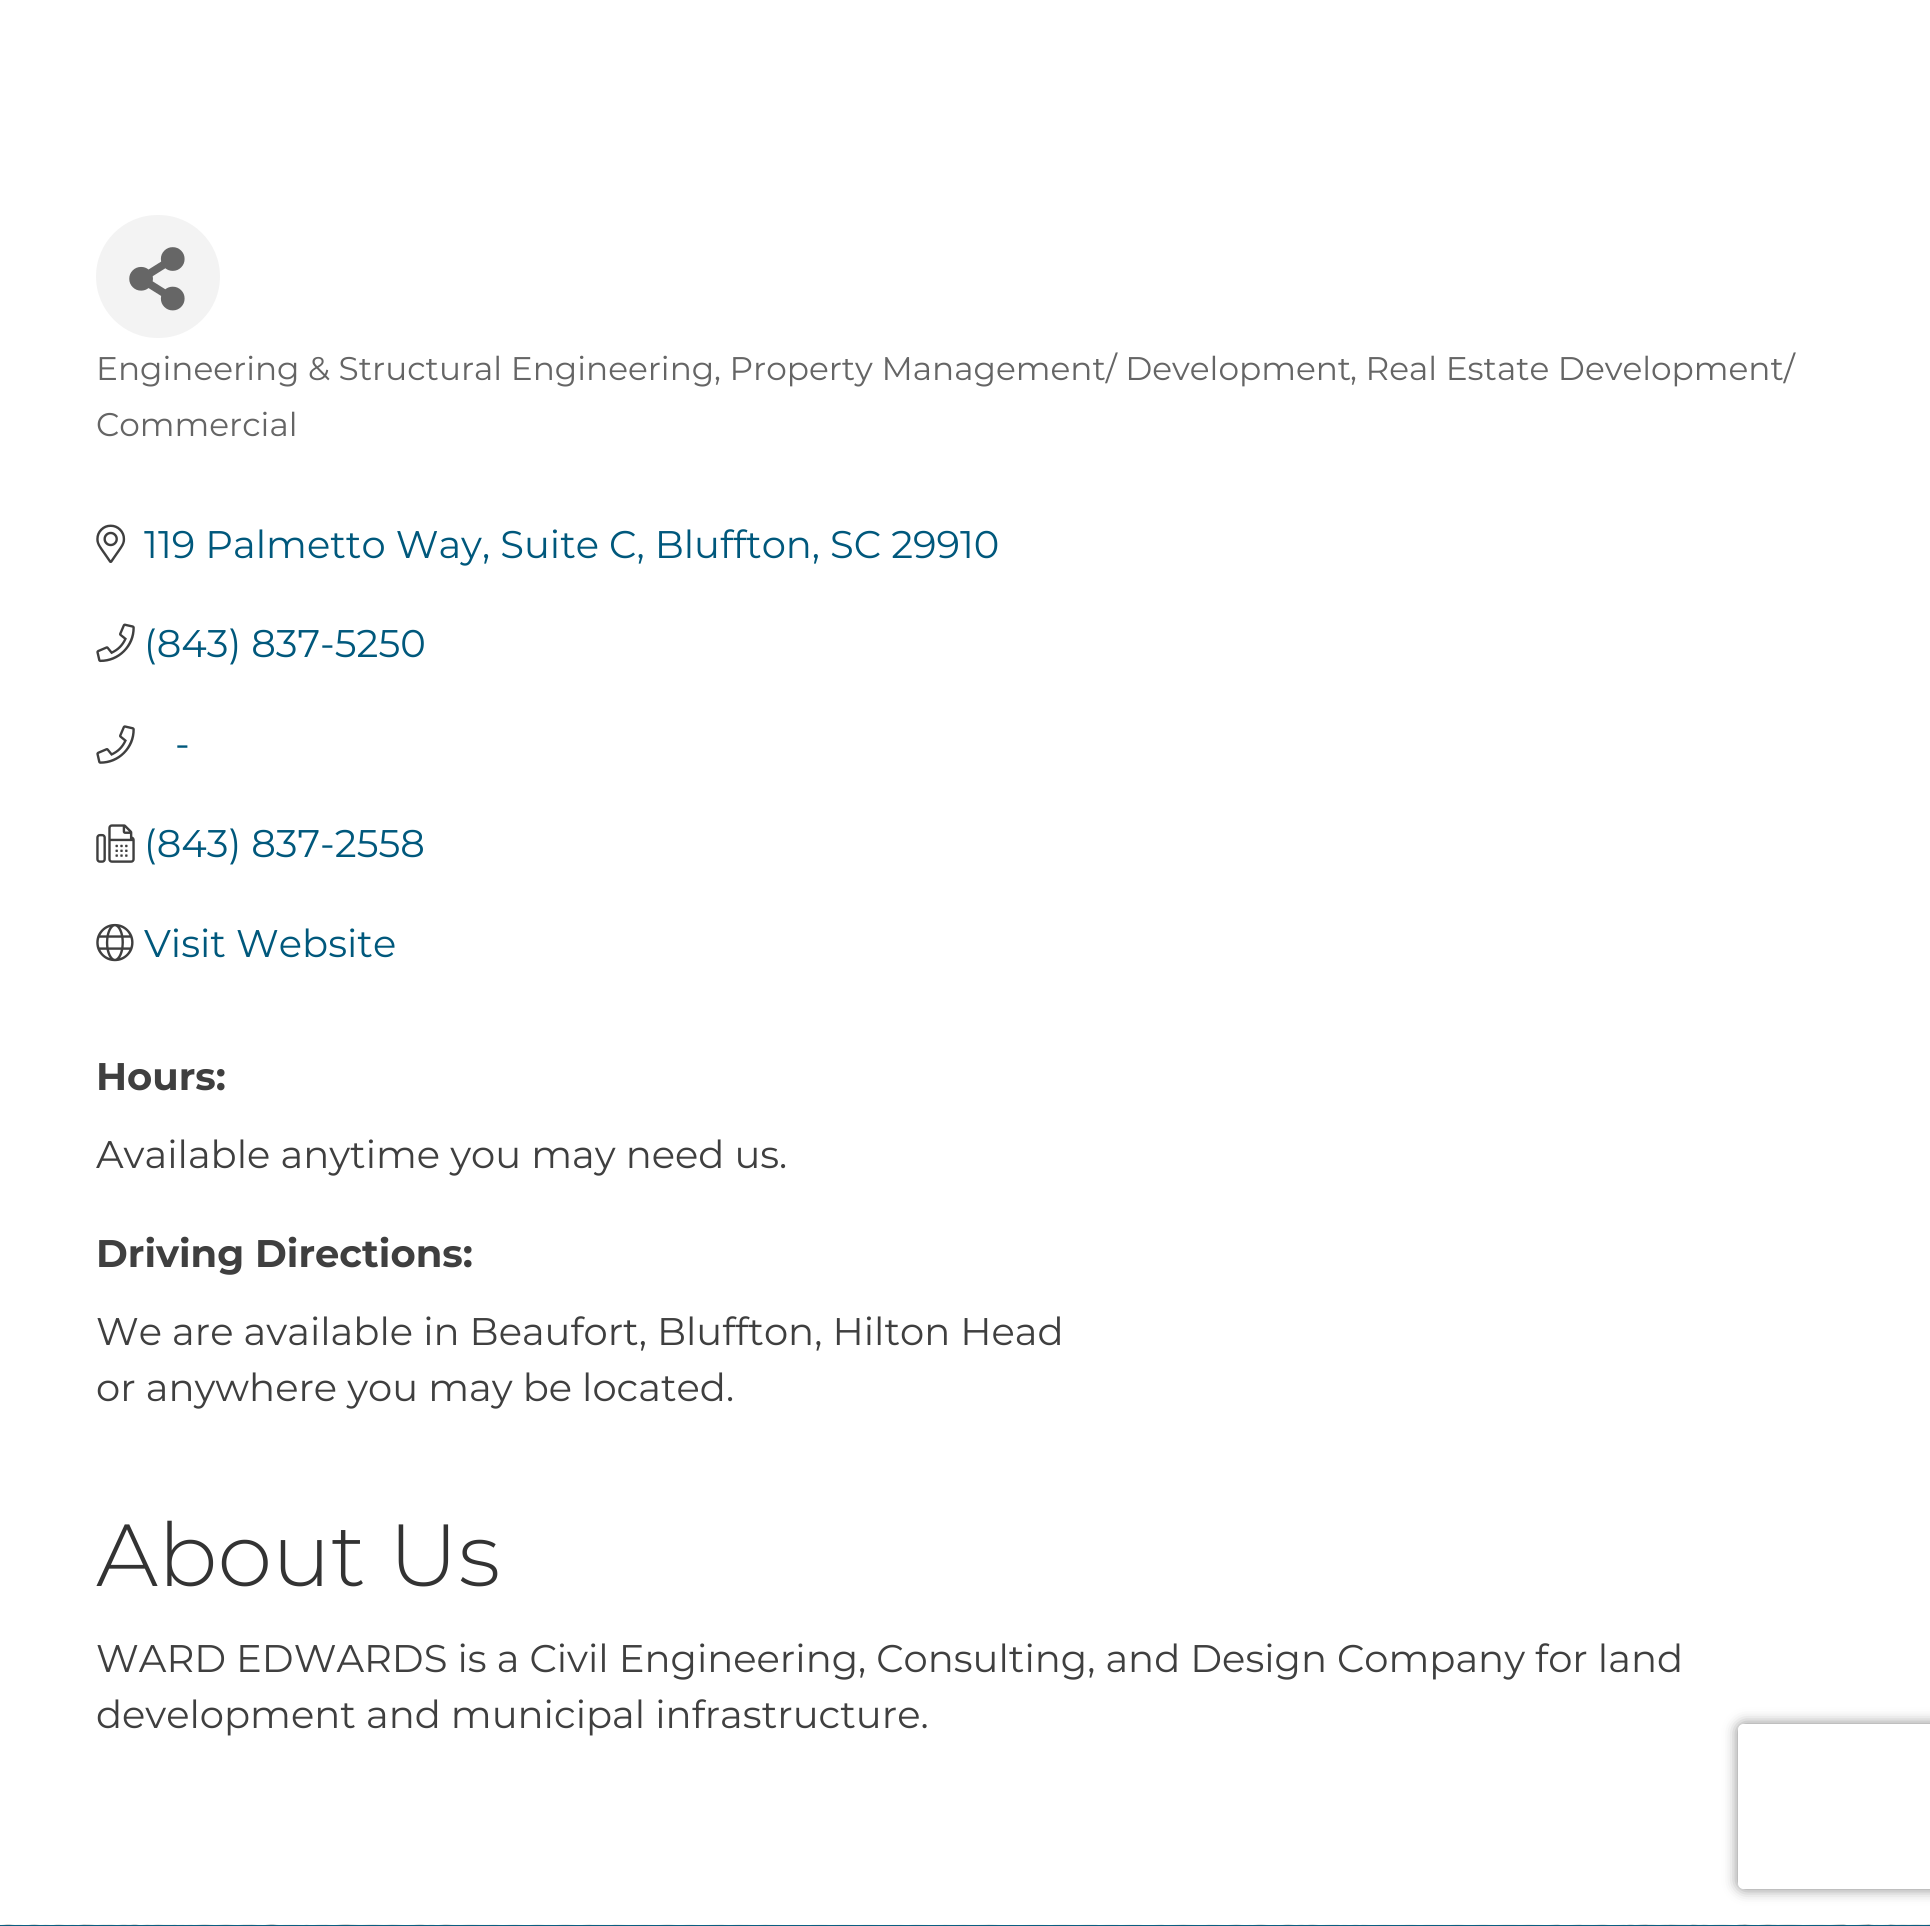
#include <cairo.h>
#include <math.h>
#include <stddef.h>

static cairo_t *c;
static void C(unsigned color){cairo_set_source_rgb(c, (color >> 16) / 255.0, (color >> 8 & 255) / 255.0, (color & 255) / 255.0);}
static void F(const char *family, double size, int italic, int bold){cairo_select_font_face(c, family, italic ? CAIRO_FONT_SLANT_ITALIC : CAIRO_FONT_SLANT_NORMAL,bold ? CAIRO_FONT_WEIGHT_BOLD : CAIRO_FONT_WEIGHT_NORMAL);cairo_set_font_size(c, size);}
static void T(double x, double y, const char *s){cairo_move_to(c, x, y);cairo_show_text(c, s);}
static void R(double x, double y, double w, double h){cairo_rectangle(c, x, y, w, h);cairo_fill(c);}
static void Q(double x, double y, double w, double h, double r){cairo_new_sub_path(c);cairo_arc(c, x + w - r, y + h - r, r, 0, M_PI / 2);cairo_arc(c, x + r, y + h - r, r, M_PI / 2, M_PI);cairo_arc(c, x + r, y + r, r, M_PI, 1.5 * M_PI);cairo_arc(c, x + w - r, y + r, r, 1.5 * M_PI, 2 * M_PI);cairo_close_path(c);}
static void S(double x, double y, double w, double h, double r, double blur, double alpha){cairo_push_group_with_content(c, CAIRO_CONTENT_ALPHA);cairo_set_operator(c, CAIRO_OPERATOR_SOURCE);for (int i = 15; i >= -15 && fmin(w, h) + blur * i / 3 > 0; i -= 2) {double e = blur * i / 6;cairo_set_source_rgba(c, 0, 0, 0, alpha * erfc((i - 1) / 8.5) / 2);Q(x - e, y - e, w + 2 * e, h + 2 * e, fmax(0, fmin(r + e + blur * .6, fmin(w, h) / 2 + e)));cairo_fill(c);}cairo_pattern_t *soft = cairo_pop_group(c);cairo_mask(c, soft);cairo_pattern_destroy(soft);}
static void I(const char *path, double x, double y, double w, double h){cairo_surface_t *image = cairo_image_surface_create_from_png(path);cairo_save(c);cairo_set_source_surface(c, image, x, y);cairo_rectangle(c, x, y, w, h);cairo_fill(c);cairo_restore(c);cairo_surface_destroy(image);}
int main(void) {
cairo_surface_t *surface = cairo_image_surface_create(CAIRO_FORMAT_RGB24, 1930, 1926);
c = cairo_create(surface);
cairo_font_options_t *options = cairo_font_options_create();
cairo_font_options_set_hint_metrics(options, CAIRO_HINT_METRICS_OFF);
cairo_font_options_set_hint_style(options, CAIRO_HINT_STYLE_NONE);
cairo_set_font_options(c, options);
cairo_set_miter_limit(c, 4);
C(0xffffff);
cairo_paint(c);
C(0xf3f3f3);
Q(96,215,124,123,61.5);
cairo_fill(c);
I("1.png",129,247,56,64);
F("Montserrat",32.75,0,0);
C(0x656565);
T(96,380,"Engineering & Structural Engineering");
T(714,380,", Property Management/ Development");
T(1350,380,", Real Estate Development/");
T(96,436,"Commercial");
I("2.png",96,524,30,39);
F("Montserrat",38.5,0,0);
C(0x00587c);
T(144,558,"119 Palmetto Way, Suite C, Bluffton, SC 29910");
I("3.png",96,623,39,40);
T(144,657,"(843) 837-5250");
I("4.png",96,725,39,39);
T(175,757,"-");
I("5.png",96,824,39,39);
T(144,857,"(843) 837-2558");
I("6.png",96,923,38,39);
T(144,957,"Visit Website");
F("Montserrat",38.5,0,1);
C(0x3f3f3f);
T(96,1090,"Hours:");
F("Montserrat",38.5,0,0);
T(96,1168,"Available anytime you may need us.");
F("Montserrat",38.5,0,1);
T(96,1267,"Driving Directions:");
F("Montserrat",38.5,0,0);
T(96,1345,"We are available in Beaufort, Bluffton, Hilton Head");
T(96,1401,"or anywhere you may be located.");
F("Montserrat Light",88,0,0);
C(0x333333);
T(96,1586,"About Us");
F("Montserrat",38.5,0,0);
C(0x3f3f3f);
T(96,1672,"WARD EDWARDS is a Civil Engineering, Consulting, and Design Company for land");
T(96,1728,"development and municipal infrastructure.");
I("7.png",0,1924,1930,2);
cairo_set_source_rgba(c,0,0.345,0.486,0.95);
R(0,1925,1930,1);
cairo_save(c);
cairo_set_fill_rule(c,CAIRO_FILL_RULE_EVEN_ODD);
cairo_new_path(c);
cairo_move_to(c,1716,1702);
cairo_line_to(c,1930,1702);
cairo_line_to(c,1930,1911);
cairo_line_to(c,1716,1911);
cairo_close_path(c);
cairo_move_to(c,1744,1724);
cairo_line_to(c,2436,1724);
cairo_curve_to(c,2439.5,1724,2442,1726.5,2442,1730);
cairo_line_to(c,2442,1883);
cairo_curve_to(c,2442,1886.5,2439.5,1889,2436,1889);
cairo_line_to(c,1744,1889);
cairo_curve_to(c,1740.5,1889,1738,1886.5,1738,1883);
cairo_line_to(c,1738,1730);
cairo_curve_to(c,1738,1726.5,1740.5,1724,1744,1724);
cairo_close_path(c);
cairo_clip(c);
C(0x808080);
S(1738,1724,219,165,6,7,1);
cairo_restore(c);
cairo_surface_write_to_png(surface, "o.png");
cairo_font_options_destroy(options);
cairo_destroy(c);
cairo_surface_destroy(surface);
return 0;
}
